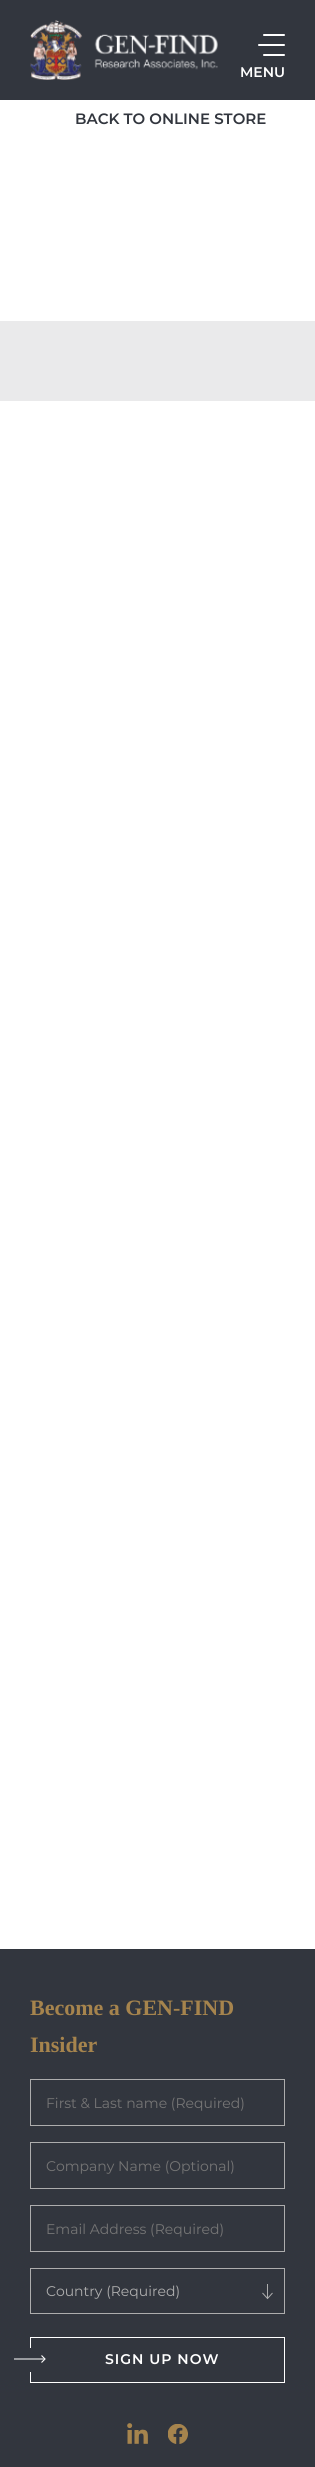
#include <cairo.h>
#include <math.h>
#include <stddef.h>

static cairo_t *c;
static void C(unsigned color){cairo_set_source_rgb(c, (color >> 16) / 255.0, (color >> 8 & 255) / 255.0, (color & 255) / 255.0);}
static void F(const char *family, double size, int italic, int bold){cairo_select_font_face(c, family, italic ? CAIRO_FONT_SLANT_ITALIC : CAIRO_FONT_SLANT_NORMAL,bold ? CAIRO_FONT_WEIGHT_BOLD : CAIRO_FONT_WEIGHT_NORMAL);cairo_set_font_size(c, size);}
static void T(double x, double y, const char *s){cairo_move_to(c, x, y);cairo_show_text(c, s);}
static void L(double x, double y, const char *s, double letter, double word){cairo_move_to(c, x, y);while (*s) {char ch[5] = {0};int n = 0;do ch[n++] = *s++; while ((*s & 0xC0) == 0x80);cairo_show_text(c, ch);cairo_rel_move_to(c, letter + word * (*ch == ' '), 0);}}
static void R(double x, double y, double w, double h){cairo_rectangle(c, x, y, w, h);cairo_fill(c);}
static void Q(double x, double y, double w, double h, double r){cairo_new_sub_path(c);cairo_arc(c, x + w - r, y + h - r, r, 0, M_PI / 2);cairo_arc(c, x + r, y + h - r, r, M_PI / 2, M_PI);cairo_arc(c, x + r, y + r, r, M_PI, 1.5 * M_PI);cairo_arc(c, x + w - r, y + r, r, 1.5 * M_PI, 2 * M_PI);cairo_close_path(c);}
static void I(const char *path, double x, double y, double w, double h){cairo_surface_t *image = cairo_image_surface_create_from_png(path);cairo_save(c);cairo_set_source_surface(c, image, x, y);cairo_rectangle(c, x, y, w, h);cairo_fill(c);cairo_restore(c);cairo_surface_destroy(image);}
int main(void) {
cairo_surface_t *surface = cairo_image_surface_create(CAIRO_FORMAT_RGB24, 315, 2467);
c = cairo_create(surface);
cairo_font_options_t *options = cairo_font_options_create();
cairo_font_options_set_hint_metrics(options, CAIRO_HINT_METRICS_OFF);
cairo_font_options_set_hint_style(options, CAIRO_HINT_STYLE_NONE);
cairo_set_font_options(c, options);
cairo_set_miter_limit(c, 4);
C(0xffffff);
cairo_paint(c);
C(0x32363e);
R(0,0,315,100);
I("1.png",30,20,188,60);
C(0xffffff);
Q(263,34,22,2,1);
cairo_fill(c);
Q(258,44,27,2,1);
cairo_fill(c);
Q(263,54,22,2,1);
cairo_fill(c);
F("Montserrat SemiBold",14,0,0);
T(240,77,"MENU");
F("Montserrat SemiBold",15,0,0);
C(0x32363e);
T(75,124,"BACK TO ONLINE STORE");
C(0xeaeaeb);
R(0,321,315,80);
C(0x32363e);
R(0,1949,315,518);
F("Liberation Serif",22,0,1);
C(0xa6844d);
T(30,2015,"Become a GEN-FIND");
T(30,2052,"Insider");
cairo_rectangle(c,30.5,2079.5,254,46);
C(0xadadad);
cairo_set_line_width(c,1);
cairo_stroke(c);
F("Montserrat",14,0,0);
C(0x757575);
T(46,2108,"First & Last name (Required)");
cairo_rectangle(c,30.5,2142.5,254,46);
C(0xadadad);
cairo_stroke(c);
C(0x757575);
T(46,2171,"Company Name (Optional)");
cairo_rectangle(c,30.5,2205.5,254,46);
C(0xadadad);
cairo_stroke(c);
C(0x757575);
T(46,2234,"Email Address (Required)");
cairo_rectangle(c,30.5,2268.5,254,45);
C(0xadadad);
cairo_stroke(c);
T(46,2296,"Country (Required)");
R(267,2284,1,15);
cairo_new_path(c);
cairo_move_to(c,272.5,2293);
cairo_line_to(c,267.5,2298.5);
cairo_line_to(c,262.5,2293);
cairo_stroke(c);
C(0xffffff);
R(30,2337,255,1);
R(284,2337,1,46);
R(30,2382,255,1);
R(30,2338,1,10);
R(30,2372,1,10);
F("Montserrat SemiBold",14,0,0);
L(105,2364,"SIGN UP NOW",1,0);
cairo_new_path(c);
cairo_move_to(c,14,2359);
cairo_line_to(c,44,2359);
cairo_stroke(c);
cairo_new_path(c);
cairo_move_to(c,41.5,2355.5);
cairo_line_to(c,45,2359);
cairo_line_to(c,41.5,2362.5);
cairo_set_line_width(c,1.1);
cairo_stroke(c);
I("2.png",127,2423,21,21);
I("3.png",168,2424,20,20);
cairo_surface_write_to_png(surface, "o.png");
cairo_font_options_destroy(options);
cairo_destroy(c);
cairo_surface_destroy(surface);
return 0;
}
